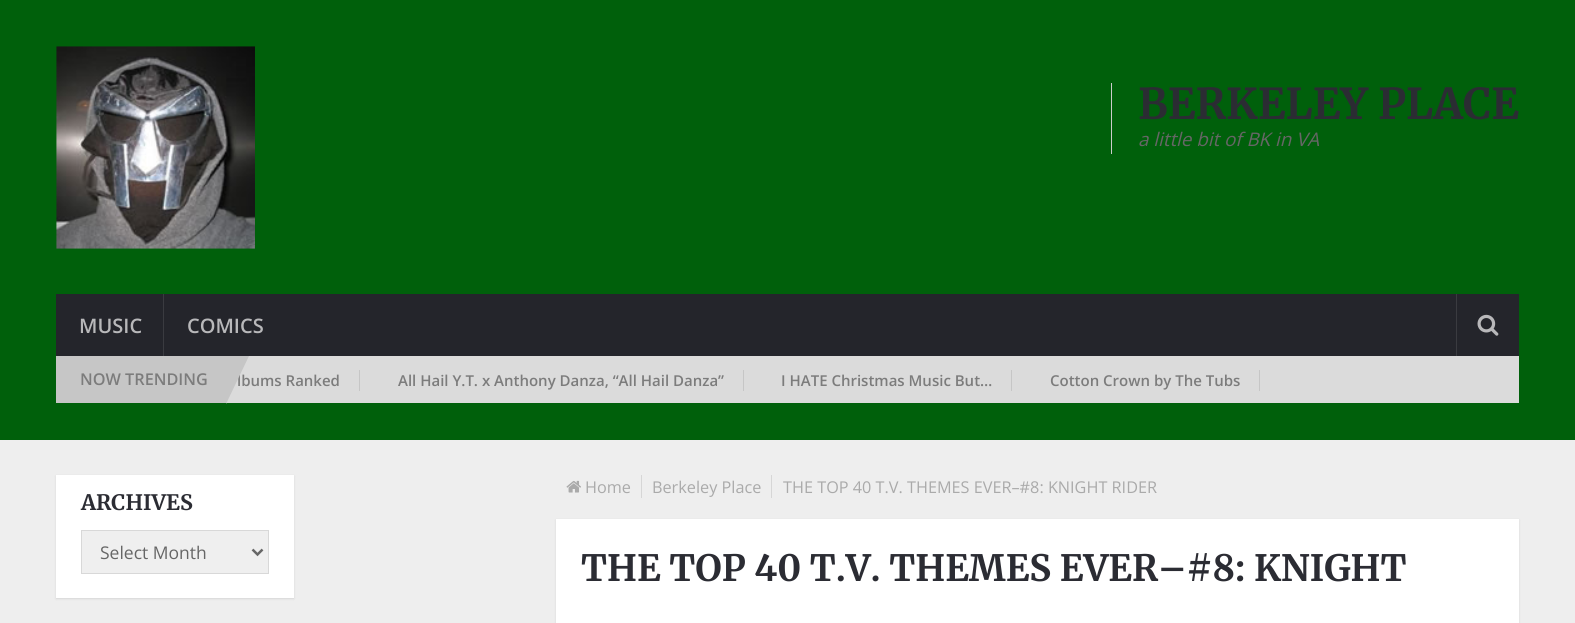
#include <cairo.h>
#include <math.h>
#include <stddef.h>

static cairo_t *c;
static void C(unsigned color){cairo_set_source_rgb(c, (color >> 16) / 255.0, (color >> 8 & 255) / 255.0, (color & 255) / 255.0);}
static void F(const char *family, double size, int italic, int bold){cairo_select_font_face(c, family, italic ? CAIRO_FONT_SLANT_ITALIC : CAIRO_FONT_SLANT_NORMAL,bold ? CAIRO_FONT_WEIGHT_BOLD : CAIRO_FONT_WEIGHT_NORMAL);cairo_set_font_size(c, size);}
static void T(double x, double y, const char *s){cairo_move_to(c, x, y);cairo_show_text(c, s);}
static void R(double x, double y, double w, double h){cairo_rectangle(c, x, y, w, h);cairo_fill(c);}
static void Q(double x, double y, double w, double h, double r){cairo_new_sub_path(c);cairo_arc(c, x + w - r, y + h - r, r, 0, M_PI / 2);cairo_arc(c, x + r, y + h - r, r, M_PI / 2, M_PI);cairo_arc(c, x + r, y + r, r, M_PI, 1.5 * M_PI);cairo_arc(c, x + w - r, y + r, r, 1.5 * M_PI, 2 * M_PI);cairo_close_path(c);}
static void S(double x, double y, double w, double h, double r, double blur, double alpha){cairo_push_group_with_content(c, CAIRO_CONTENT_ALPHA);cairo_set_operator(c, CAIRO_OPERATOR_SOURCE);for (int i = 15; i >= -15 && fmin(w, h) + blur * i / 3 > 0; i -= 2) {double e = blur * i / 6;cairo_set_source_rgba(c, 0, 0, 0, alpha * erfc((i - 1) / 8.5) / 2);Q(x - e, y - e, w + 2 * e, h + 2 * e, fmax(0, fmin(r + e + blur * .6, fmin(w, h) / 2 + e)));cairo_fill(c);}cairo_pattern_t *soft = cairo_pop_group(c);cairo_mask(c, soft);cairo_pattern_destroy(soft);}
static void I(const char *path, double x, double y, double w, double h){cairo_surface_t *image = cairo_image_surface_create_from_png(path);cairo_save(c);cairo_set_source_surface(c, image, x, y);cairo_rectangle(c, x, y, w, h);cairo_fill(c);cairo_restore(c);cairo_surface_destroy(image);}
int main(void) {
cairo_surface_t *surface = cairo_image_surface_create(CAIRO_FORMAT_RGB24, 1575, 623);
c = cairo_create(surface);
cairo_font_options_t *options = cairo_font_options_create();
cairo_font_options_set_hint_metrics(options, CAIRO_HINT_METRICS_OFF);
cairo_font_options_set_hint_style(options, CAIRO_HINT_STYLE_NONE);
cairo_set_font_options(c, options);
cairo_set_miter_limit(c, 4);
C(0xeeeeee);
cairo_paint(c);
C(0x00600b);
R(0,0,1575,440);
I("1.png",56,46,199,203);
C(0xcccccc);
R(1111,83,1,71);
F("Merriweather Light",42.5,0,0);
C(0x2b2c33);
T(1138,119,"BERKELEY PLACE");
F("Open Sans",18.75,1,0);
C(0x666666);
T(1138,146,"a little bit of BK in VA");
C(0x24252b);
R(56,294,1463,62);
C(0x3a3b40);
R(163,294,1,62);
F("Open Sans SemiBold",20,0,0);
C(0xb8b8ba);
T(79,333,"MUSIC");
T(187,333,"COMICS");
C(0x3a3b40);
R(1456,294,1,62);
I("2.png",1477,314,22,22);
C(0xdbdbdb);
R(226,356,1293,47);
C(0xc6c6c6);
R(56,356,170,47);
F("Open Sans SemiBold",16.25,0,0);
C(0x7c7c7c);
T(80,385,"NOW TRENDING");
F("Open Sans SemiBold",15,0,0);
T(237,386,"lbums Ranked");
C(0xc6c6c6);
cairo_new_path(c);
cairo_move_to(c,226,356);
cairo_line_to(c,249,356);
cairo_line_to(c,226,404);
cairo_close_path(c);
cairo_fill(c);
R(359,370,1,21);
C(0x7c7c7c);
T(398,386,"All Hail Y.T. x Anthony Danza, “All Hail Danza”");
C(0xc6c6c6);
R(743,370,1,21);
C(0x7c7c7c);
T(781,386,"I HATE Christmas Music But…");
C(0xc6c6c6);
R(1011,370,1,21);
C(0x7c7c7c);
T(1050,386,"Cotton Crown by The Tubs");
C(0xc6c6c6);
R(1259,370,1,21);
C(0x000000);
S(56,476,238,123,0,1,.1);
C(0xffffff);
R(56,475,238,123);
F("Merriweather Light",21.25,0,0);
C(0x2b2c33);
T(81,510,"ARCHIVES");
C(0xefefef);
cairo_rectangle(c,81.5,530.5,187,43);
cairo_fill_preserve(c);
C(0xd8d8d8);
cairo_set_line_width(c,1);
cairo_stroke(c);
cairo_new_path(c);
cairo_move_to(c,252.5,549.5);
cairo_line_to(c,257.5,554.5);
cairo_line_to(c,262.5,549.5);
C(0x666666);
cairo_set_line_width(c,2.5);
cairo_stroke(c);
F("Open Sans",17.5,0,0);
T(100,559,"Select Month");
I("3.png",566,480,15,13);
F("Open Sans",16.25,0,0);
C(0xaaaaaa);
T(585,493,"Home");
C(0xd6d6d6);
R(641,475,1,23);
C(0xaaaaaa);
T(652,493,"Berkeley Place");
C(0xd6d6d6);
R(771,475,1,23);
C(0xaaaaaa);
T(783,493,"THE TOP 40 T.V. THEMES EVER–#8: KNIGHT RIDER");
C(0x000000);
S(556,520,963,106,0,1,.1);
C(0xffffff);
R(556,519,963,104);
F("Merriweather Light",36.25,0,0);
C(0x2b2c33);
T(581,581,"THE TOP 40 T.V. THEMES EVER–#8: KNIGHT");
cairo_surface_write_to_png(surface, "o.png");
cairo_font_options_destroy(options);
cairo_destroy(c);
cairo_surface_destroy(surface);
return 0;
}
